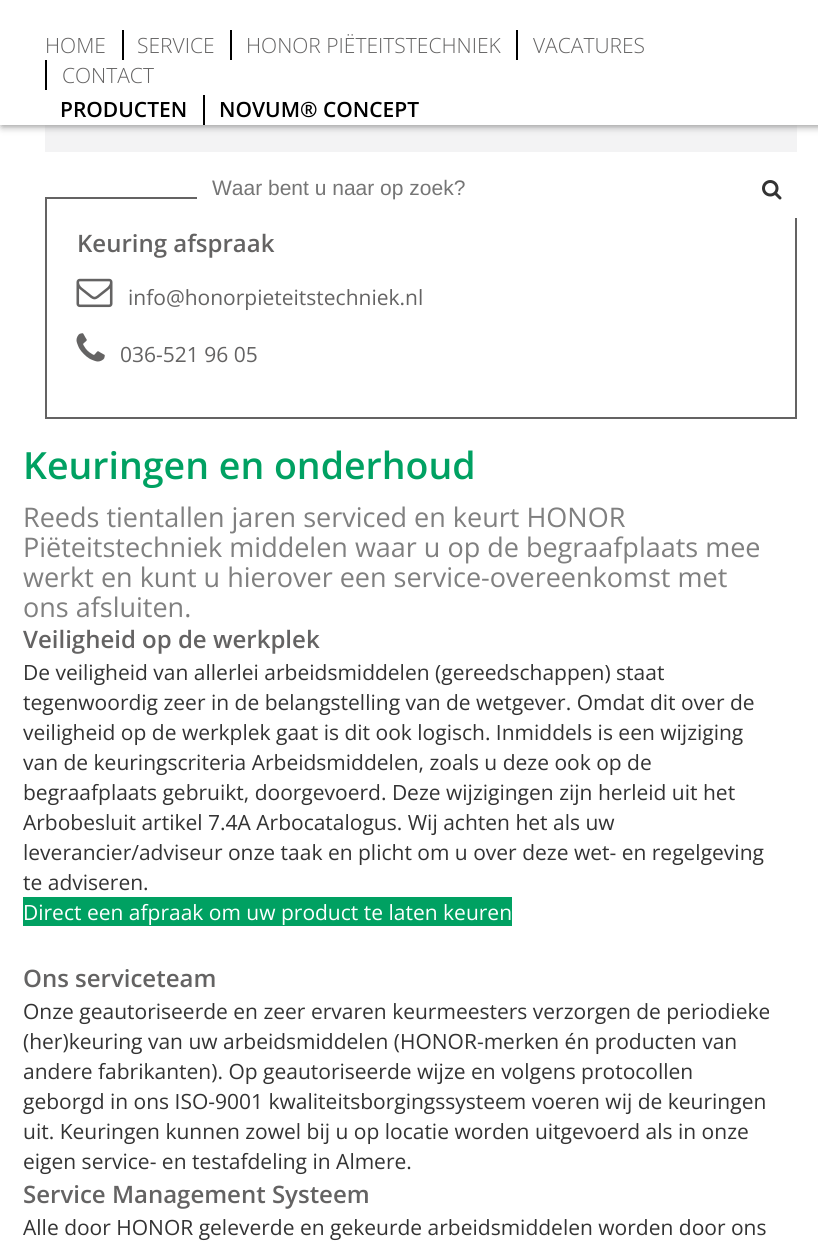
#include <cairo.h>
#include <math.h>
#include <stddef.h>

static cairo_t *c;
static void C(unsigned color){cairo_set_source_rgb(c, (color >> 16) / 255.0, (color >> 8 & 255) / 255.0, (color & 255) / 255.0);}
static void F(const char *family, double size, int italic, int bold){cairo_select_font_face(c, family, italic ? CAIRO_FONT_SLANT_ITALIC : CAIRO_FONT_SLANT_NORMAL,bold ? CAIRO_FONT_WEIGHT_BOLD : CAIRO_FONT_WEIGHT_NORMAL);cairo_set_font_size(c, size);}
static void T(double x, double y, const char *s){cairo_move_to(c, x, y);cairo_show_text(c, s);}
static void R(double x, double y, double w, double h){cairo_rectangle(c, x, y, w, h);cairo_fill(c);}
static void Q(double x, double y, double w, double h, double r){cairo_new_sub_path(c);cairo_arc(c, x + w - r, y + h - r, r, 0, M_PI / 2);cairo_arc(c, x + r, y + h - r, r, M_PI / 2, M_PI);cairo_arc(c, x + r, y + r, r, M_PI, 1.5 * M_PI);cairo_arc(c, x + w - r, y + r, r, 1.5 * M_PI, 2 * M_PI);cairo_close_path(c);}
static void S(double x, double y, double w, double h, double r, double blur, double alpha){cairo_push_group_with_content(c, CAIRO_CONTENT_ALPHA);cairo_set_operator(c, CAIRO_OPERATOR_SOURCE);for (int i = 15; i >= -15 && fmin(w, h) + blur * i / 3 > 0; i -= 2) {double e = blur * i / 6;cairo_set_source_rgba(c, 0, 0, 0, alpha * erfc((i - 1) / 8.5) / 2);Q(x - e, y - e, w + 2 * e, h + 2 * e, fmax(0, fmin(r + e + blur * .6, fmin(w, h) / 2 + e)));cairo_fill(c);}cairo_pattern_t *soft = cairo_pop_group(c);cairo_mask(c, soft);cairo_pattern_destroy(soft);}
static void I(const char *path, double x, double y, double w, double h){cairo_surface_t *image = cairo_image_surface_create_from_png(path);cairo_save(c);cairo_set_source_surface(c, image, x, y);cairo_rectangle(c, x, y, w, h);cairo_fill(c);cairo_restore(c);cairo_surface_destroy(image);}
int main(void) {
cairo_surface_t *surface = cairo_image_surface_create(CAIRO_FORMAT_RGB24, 818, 1256);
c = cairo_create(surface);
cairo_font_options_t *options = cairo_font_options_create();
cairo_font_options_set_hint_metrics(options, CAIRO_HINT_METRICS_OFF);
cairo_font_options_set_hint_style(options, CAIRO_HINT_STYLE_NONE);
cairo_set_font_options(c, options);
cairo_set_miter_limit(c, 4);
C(0xffffff);
cairo_paint(c);
C(0xf3f3f4);
R(45,125,752,27);
C(0x888888);
S(2,2,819,124,0,4,1);
C(0xffffff);
R(0,0,818,125);
F("Open Sans Light",21,0,0);
C(0x646363);
T(45,53,"HOME");
C(0x000000);
R(122,30,2,30);
C(0x646363);
T(137,53,"SERVICE");
C(0x000000);
R(230,30,2,30);
C(0x646363);
T(246,53,"HONOR PIËTEITSTECHNIEK");
C(0x000000);
R(516,30,2,30);
C(0x646363);
T(533,53,"VACATURES");
C(0x000000);
R(45,60,2,30);
C(0x646363);
T(62,83,"CONTACT");
F("Open Sans SemiBold",21,0,0);
C(0x000000);
T(60,117,"PRODUCTEN");
R(203,95,2,30);
T(219,117,"NOVUM® CONCEPT");
cairo_rectangle(c,46,198,750,220);
C(0x646363);
cairo_stroke(c);
C(0xffffff);
R(197,197,600,21);
F("Liberation Sans",21,0,0);
C(0x757575);
T(212,195,"Waar bent u naar op zoek?");
I("1.png",762,180,20,20);
F("Open Sans SemiBold",24,0,0);
C(0x646363);
T(77,252,"Keuring afspraak");
I("2.png",76,278,37,30);
F("Open Sans",21,0,0);
T(128,305,"info@honorpieteitstechniek.nl");
I("3.png",76,333,29,29);
T(120,362,"036-521 96 05");
F("Open Sans SemiBold",37.5,0,0);
C(0x00a162);
T(23,479,"Keuringen en onderhoud");
F("Open Sans",27,0,0);
C(0x808080);
T(23,527,"Reeds tientallen jaren serviced en keurt HONOR");
T(23,557,"Piëteitstechniek middelen waar u op de begraafplaats mee");
T(23,587,"werkt en kunt u hierover een service-overeenkomst met");
T(23,617,"ons afsluiten.");
F("Open Sans SemiBold",24,0,0);
C(0x646363);
T(23,648,"Veiligheid op de werkplek");
F("Open Sans",21,0,0);
C(0x333333);
T(23,680,"De veiligheid van allerlei arbeidsmiddelen (gereedschappen) staat");
T(23,710,"tegenwoordig zeer in de belangstelling van de wetgever. Omdat dit over de");
T(23,740,"veiligheid op de werkplek gaat is dit ook logisch. Inmiddels is een wijziging");
T(23,770,"van de keuringscriteria Arbeidsmiddelen, zoals u deze ook op de");
T(23,800,"begraafplaats gebruikt, doorgevoerd. Deze wijzigingen zijn herleid uit het");
T(23,830,"Arbobesluit artikel 7.4A Arbocatalogus. Wij achten het als uw");
T(23,860,"leverancier/adviseur onze taak en plicht om u over deze wet- en regelgeving");
T(23,890,"te adviseren.");
C(0x00a162);
R(23,897,489,29);
C(0xffffff);
T(23,920,"Direct een afpraak om uw product te laten keuren");
F("Open Sans SemiBold",24,0,0);
C(0x646363);
T(23,987,"Ons serviceteam");
F("Open Sans",21,0,0);
C(0x333333);
T(23,1019,"Onze geautoriseerde en zeer ervaren keurmeesters verzorgen de periodieke");
T(23,1049,"(her)keuring van uw arbeidsmiddelen (HONOR-merken én producten van");
T(23,1079,"andere fabrikanten). Op geautoriseerde wijze en volgens protocollen");
T(23,1109,"geborgd in ons ISO-9001 kwaliteitsborgingssysteem voeren wij de keuringen");
T(23,1139,"uit. Keuringen kunnen zowel bij u op locatie worden uitgevoerd als in onze");
T(23,1169,"eigen service- en testafdeling in Almere.");
F("Open Sans SemiBold",24,0,0);
C(0x646363);
T(23,1203,"Service Management Systeem");
F("Open Sans",21,0,0);
C(0x333333);
T(23,1235,"Alle door HONOR geleverde en gekeurde arbeidsmiddelen worden door ons");
cairo_surface_write_to_png(surface, "o.png");
cairo_font_options_destroy(options);
cairo_destroy(c);
cairo_surface_destroy(surface);
return 0;
}
